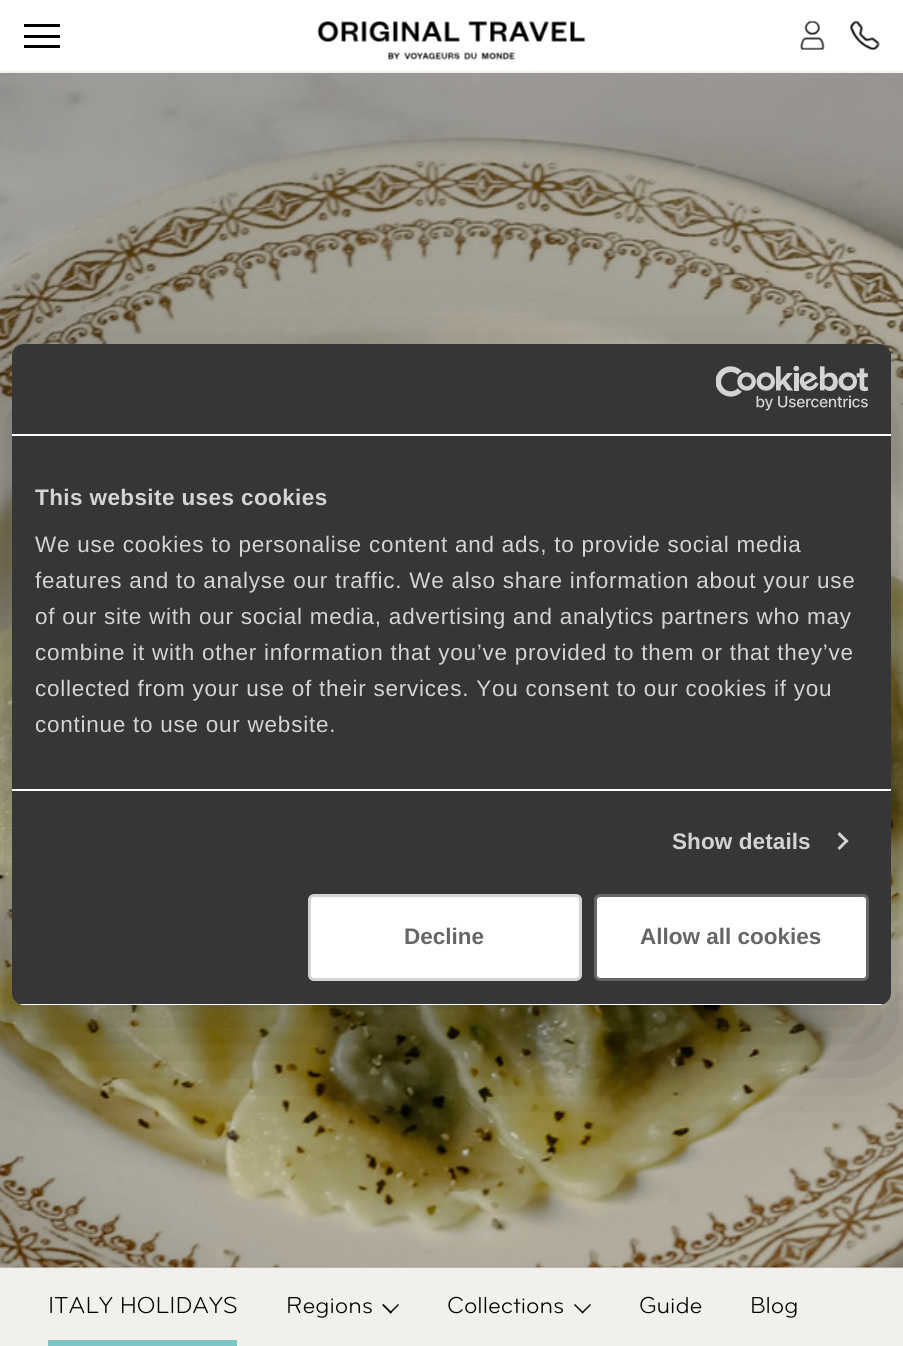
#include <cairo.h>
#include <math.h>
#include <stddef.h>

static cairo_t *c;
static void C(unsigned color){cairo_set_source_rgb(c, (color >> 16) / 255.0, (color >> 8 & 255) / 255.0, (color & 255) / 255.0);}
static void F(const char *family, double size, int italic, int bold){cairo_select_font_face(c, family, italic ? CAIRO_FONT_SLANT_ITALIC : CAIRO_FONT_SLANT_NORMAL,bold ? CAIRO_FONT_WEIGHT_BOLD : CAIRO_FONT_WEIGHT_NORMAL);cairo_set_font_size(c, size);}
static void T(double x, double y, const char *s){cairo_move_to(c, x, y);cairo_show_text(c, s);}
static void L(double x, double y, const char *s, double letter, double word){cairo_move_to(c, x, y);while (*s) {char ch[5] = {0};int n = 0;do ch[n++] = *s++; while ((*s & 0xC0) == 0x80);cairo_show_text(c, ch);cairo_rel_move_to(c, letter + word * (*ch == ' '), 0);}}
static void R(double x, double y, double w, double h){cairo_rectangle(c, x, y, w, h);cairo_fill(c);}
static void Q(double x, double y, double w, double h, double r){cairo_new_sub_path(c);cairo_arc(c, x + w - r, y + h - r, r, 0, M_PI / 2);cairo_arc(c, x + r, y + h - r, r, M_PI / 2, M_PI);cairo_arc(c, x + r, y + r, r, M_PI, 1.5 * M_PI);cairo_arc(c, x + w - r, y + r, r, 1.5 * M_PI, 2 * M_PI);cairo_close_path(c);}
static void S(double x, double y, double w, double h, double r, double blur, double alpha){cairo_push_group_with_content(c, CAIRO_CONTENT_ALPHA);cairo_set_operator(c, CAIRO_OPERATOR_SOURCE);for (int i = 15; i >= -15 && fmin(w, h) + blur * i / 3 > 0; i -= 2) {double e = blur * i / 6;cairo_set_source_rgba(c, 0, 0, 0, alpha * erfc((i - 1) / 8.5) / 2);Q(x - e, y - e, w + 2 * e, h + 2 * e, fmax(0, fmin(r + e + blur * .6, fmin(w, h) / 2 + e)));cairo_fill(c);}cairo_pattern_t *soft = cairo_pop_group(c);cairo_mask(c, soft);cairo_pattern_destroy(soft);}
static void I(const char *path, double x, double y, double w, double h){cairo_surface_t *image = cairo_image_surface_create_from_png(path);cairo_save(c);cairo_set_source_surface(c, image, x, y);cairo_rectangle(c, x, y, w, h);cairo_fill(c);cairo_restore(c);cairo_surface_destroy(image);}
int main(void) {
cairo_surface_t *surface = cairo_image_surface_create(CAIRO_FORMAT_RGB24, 903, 1346);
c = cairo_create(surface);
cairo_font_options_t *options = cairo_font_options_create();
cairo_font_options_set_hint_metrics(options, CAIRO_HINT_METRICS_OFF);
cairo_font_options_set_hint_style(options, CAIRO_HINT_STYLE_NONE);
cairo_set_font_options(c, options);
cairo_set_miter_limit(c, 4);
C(0xffffff);
cairo_paint(c);
I("5.png",0,73,903,1195);
C(0x000000);
S(12,392,879,661,12,51,.3);
C(0x363639);
Q(12,344,879,661,12);
cairo_fill(c);
C(0xffffff);
R(12,434,879,2);
I("1.png",716,366,153,45);
R(12,789,879,2);
F("Liberation Sans",22.5,0,1);
C(0xd4d4d4);
L(35,505,"This website uses cookies",.4,0);
F("Liberation Sans",22.5,0,0);
L(35,552,"We use cookies to personalise content and ads, to provide social media",.75,0);
L(35,588,"features and to analyse our traffic. We also share information about your use",.75,0);
L(35,624,"of our site with our social media, advertising and analytics partners who may",.75,0);
L(35,660,"combine it with other information that you’ve provided to them or that they’ve",.75,0);
L(35,696,"collected from your use of their services. You consent to our cookies if you",.75,0);
L(35,732,"continue to use our website.",.75,0);
F("Liberation Sans",22.5,0,1);
L(672,849,"Show details",.1,0);
cairo_new_path(c);
cairo_move_to(c,839.5,832);
cairo_line_to(c,848.5,841);
cairo_line_to(c,846.5,843);
cairo_line_to(c,837.5,834.5);
cairo_close_path(c);
cairo_fill(c);
cairo_new_path(c);
cairo_move_to(c,846.5,839);
cairo_line_to(c,848.5,841);
cairo_line_to(c,839.5,850);
cairo_line_to(c,837.5,848);
cairo_close_path(c);
cairo_fill(c);
cairo_save(c);
Q(12,344,879,661,12);
cairo_clip(c);
C(0xffffff);
R(12,1004,879,1);
cairo_restore(c);
C(0xffffff);
Q(309.5,895.5,271,84,4.5);
cairo_fill_preserve(c);
C(0xd4d4d4);
cairo_set_line_width(c,3);
cairo_stroke(c);
C(0x666666);
T(404,944,"Decline");
C(0xffffff);
Q(595.5,895.5,272,84,4.5);
cairo_fill_preserve(c);
C(0x666666);
cairo_stroke(c);
T(640,944,"Allow all cookies");
C(0xf1f0ec);
R(0,71,903,2);
C(0x000000);
R(24,24,36,3);
R(24,35,36,3);
R(24,45,36,3);
I("2.png",317,21,269,39);
I("3.png",800,20,25,30);
I("4.png",850,20,30,30);
C(0x000000);
S(0,1268,903,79,0,1,.4);
C(0xf1f0ec);
R(0,1268,903,78);
C(0x7bc5c4);
R(48,1340,189,6);
F("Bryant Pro",24,0,0);
C(0x000000);
T(48,1313,"ITALY HOLIDAYS");
T(286,1313,"Regions");
cairo_new_path(c);
cairo_move_to(c,398,1304);
cairo_line_to(c,399,1305);
cairo_line_to(c,390.5,1313.5);
cairo_line_to(c,389.5,1312.5);
cairo_close_path(c);
cairo_fill(c);
cairo_new_path(c);
cairo_move_to(c,383.5,1304);
cairo_line_to(c,392,1312.5);
cairo_line_to(c,390.5,1313.5);
cairo_line_to(c,382,1305);
cairo_close_path(c);
cairo_fill(c);
T(447,1313,"Collections");
cairo_new_path(c);
cairo_move_to(c,590,1304);
cairo_line_to(c,591,1305);
cairo_line_to(c,582.5,1313.5);
cairo_line_to(c,581.5,1312.5);
cairo_close_path(c);
cairo_fill(c);
cairo_new_path(c);
cairo_move_to(c,575,1304);
cairo_line_to(c,583.5,1312.5);
cairo_line_to(c,582.5,1313.5);
cairo_line_to(c,574,1305);
cairo_close_path(c);
cairo_fill(c);
T(639,1313,"Guide");
T(750,1313,"Blog");
cairo_surface_write_to_png(surface, "o.png");
cairo_font_options_destroy(options);
cairo_destroy(c);
cairo_surface_destroy(surface);
return 0;
}
